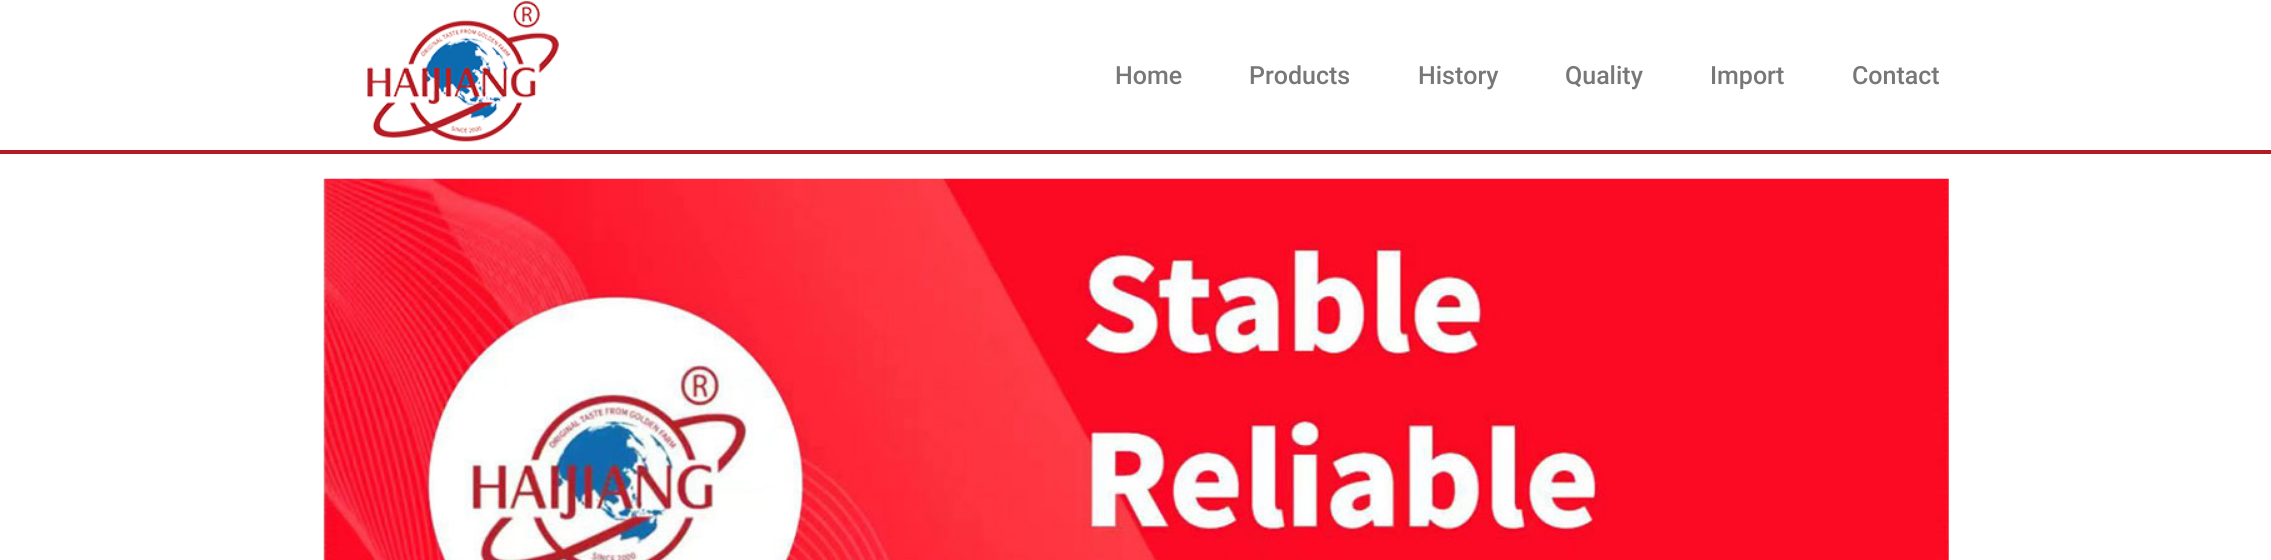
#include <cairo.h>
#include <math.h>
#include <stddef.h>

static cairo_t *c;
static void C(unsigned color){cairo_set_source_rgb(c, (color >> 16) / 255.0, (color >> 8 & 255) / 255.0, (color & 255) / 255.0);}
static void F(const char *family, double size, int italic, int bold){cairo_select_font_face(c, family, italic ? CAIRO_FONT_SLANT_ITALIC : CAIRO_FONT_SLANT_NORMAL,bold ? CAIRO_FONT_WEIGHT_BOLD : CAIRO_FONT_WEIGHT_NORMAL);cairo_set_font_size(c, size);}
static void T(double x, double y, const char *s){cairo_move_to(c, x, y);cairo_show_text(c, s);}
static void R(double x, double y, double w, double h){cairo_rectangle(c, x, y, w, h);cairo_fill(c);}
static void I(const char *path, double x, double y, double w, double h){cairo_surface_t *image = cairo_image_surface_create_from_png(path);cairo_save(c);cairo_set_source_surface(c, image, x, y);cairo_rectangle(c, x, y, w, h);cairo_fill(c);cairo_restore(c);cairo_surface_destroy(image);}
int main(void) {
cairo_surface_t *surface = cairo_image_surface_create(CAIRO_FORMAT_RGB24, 2271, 560);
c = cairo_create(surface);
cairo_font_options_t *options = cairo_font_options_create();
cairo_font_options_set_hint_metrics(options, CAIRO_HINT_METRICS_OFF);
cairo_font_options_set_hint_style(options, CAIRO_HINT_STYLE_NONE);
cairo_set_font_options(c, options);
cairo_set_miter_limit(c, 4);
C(0xffffff);
cairo_paint(c);
C(0xb21b23);
R(0,150,2271,4);
I("1.png",367,1,192,141);
F("Roboto Medium",25,0,0);
C(0x777777);
T(1115,84,"Home");
T(1249,84,"Products");
T(1418,84,"History");
T(1565,84,"Quality");
T(1710,84,"Import");
T(1852,84,"Contact");
I("2.png",323,178,1626,382);
cairo_surface_write_to_png(surface, "o.png");
cairo_font_options_destroy(options);
cairo_destroy(c);
cairo_surface_destroy(surface);
return 0;
}
